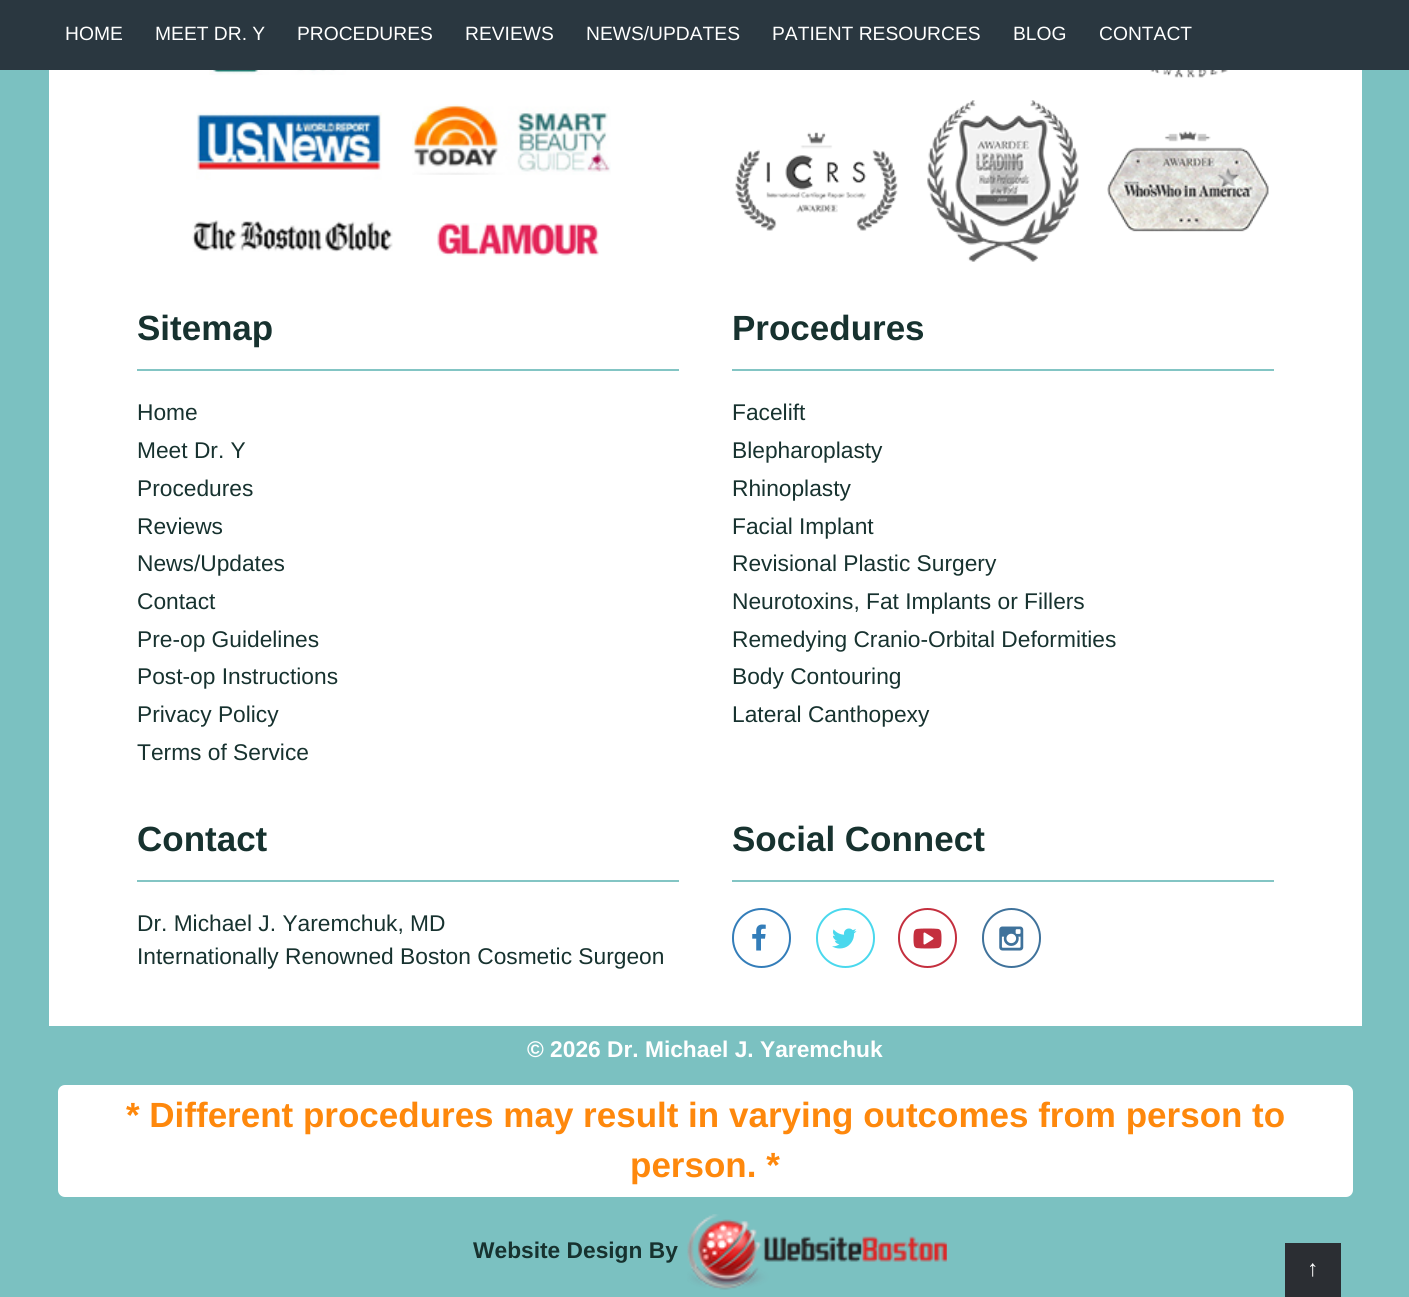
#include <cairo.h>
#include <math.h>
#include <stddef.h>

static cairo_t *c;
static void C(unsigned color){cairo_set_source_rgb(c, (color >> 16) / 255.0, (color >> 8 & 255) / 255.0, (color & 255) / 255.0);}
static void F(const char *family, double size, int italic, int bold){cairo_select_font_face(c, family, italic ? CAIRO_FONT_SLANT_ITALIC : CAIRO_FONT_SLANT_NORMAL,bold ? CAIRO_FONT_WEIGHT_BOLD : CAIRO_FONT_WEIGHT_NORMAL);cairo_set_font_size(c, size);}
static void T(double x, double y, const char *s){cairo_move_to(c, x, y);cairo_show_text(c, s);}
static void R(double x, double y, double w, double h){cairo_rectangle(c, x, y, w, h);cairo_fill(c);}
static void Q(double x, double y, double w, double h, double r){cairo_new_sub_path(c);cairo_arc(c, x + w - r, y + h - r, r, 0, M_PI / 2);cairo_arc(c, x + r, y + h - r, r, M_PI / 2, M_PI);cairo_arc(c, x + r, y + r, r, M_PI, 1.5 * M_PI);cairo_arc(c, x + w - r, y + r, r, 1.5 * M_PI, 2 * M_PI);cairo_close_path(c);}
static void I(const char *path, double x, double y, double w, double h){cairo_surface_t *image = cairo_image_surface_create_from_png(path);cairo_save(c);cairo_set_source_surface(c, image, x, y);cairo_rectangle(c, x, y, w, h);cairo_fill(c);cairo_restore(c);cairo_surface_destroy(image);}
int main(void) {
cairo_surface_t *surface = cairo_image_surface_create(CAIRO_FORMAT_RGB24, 1409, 1297);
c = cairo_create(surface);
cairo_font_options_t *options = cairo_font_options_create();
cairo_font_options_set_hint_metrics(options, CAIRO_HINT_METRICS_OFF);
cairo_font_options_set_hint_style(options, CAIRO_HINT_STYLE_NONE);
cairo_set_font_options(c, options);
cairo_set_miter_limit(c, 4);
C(0x7bc1c1);
cairo_paint(c);
C(0x2a3740);
R(0,0,1409,70);
F("Liberation Sans",19.25,0,0);
C(0xffffff);
T(65,40,"HOME");
T(155,40,"MEET DR. Y");
T(297,40,"PROCEDURES");
T(465,40,"REVIEWS");
T(586,40,"NEWS/UPDATES");
T(772,40,"PATIENT RESOURCES");
T(1013,40,"BLOG");
T(1099,40,"CONTACT");
R(49,70,1313,956);
I("1.png",209,70,164,5);
I("2.png",196,112,186,68);
I("3.png",412,104,199,71);
I("4.png",192,220,201,32);
I("5.png",437,223,162,33);
I("6.png",1150,70,78,8);
I("7.png",735,132,163,99);
I("8.png",927,100,152,162);
I("9.png",1107,131,162,101);
C(0x83c5c4);
R(137,369,542,2);
F("Liberation Sans",35,0,1);
C(0x17322f);
T(137,340,"Sitemap");
F("Liberation Sans",22.75,0,0);
T(137,420,"Home");
T(137,458,"Meet Dr. Y");
T(137,496,"Procedures");
T(137,534,"Reviews");
T(137,571,"News/Updates");
T(137,609,"Contact");
T(137,647,"Pre-op Guidelines");
T(137,684,"Post-op Instructions");
T(137,722,"Privacy Policy");
T(137,760,"Terms of Service");
C(0x83c5c4);
R(732,369,542,2);
F("Liberation Sans",35,0,1);
C(0x17322f);
T(732,340,"Procedures");
F("Liberation Sans",22.75,0,0);
T(732,420,"Facelift");
T(732,458,"Blepharoplasty");
T(732,496,"Rhinoplasty");
T(732,534,"Facial Implant");
T(732,571,"Revisional Plastic Surgery");
T(732,609,"Neurotoxins, Fat Implants or Fillers");
T(732,647,"Remedying Cranio-Orbital Deformities");
T(732,684,"Body Contouring");
T(732,722,"Lateral Canthopexy");
C(0x83c5c4);
R(137,880,542,2);
F("Liberation Sans",35,0,1);
C(0x17322f);
T(137,851,"Contact");
F("Liberation Sans",22.75,0,0);
T(137,931,"Dr. Michael J. Yaremchuk, MD");
T(137,964,"Internationally Renowned Boston Cosmetic Surgeon");
C(0x83c5c4);
R(732,880,542,2);
F("Liberation Sans",35,0,1);
C(0x17322f);
T(732,851,"Social Connect");
Q(733,909,57,58,28.5);
C(0x337db9);
cairo_stroke(c);
I("10.png",752,924,14,27);
Q(817,909,57,58,28.5);
C(0x4ad8ed);
cairo_stroke(c);
I("11.png",832,928,25,21);
Q(899,909,57,58,28.5);
C(0xc42f3e);
cairo_stroke(c);
I("12.png",913,928,29,21);
Q(983,909,57,58,28.5);
C(0x3f729b);
cairo_stroke(c);
I("13.png",999,926,25,25);
F("Liberation Sans",22.75,0,1);
C(0xffffff);
T(527,1057,"© 2026 Dr. Michael J. Yaremchuk");
Q(58,1085,1295,112,7);
cairo_fill(c);
F("Liberation Sans",35,0,1);
C(0xfe880c);
T(126,1127,"* Different procedures may result in varying outcomes from person to");
T(630,1177,"person. *");
F("Liberation Sans",22.75,0,1);
C(0x17322f);
T(473,1258,"Website Design By");
I("14.png",687,1214,260,76);
C(0x2b2e33);
R(1285,1243,56,54);
F("Liberation Sans",22.75,0,0);
C(0xffffff);
T(1307,1276,"↑");
cairo_surface_write_to_png(surface, "o.png");
cairo_font_options_destroy(options);
cairo_destroy(c);
cairo_surface_destroy(surface);
return 0;
}
